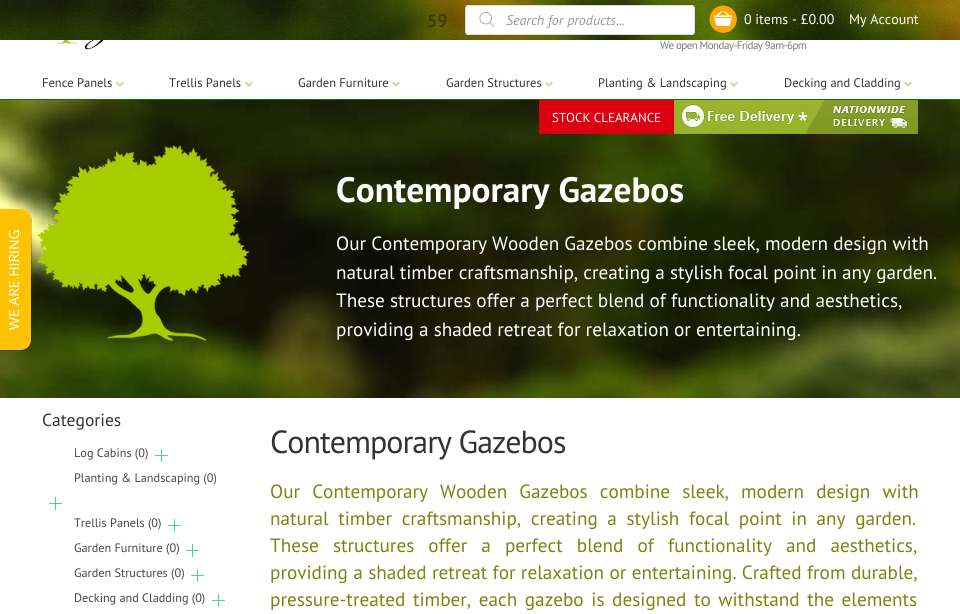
#include <cairo.h>
#include <math.h>
#include <stddef.h>

static cairo_t *c;
static void C(unsigned color){cairo_set_source_rgb(c, (color >> 16) / 255.0, (color >> 8 & 255) / 255.0, (color & 255) / 255.0);}
static void F(const char *family, double size, int italic, int bold){cairo_select_font_face(c, family, italic ? CAIRO_FONT_SLANT_ITALIC : CAIRO_FONT_SLANT_NORMAL,bold ? CAIRO_FONT_WEIGHT_BOLD : CAIRO_FONT_WEIGHT_NORMAL);cairo_set_font_size(c, size);}
static void T(double x, double y, const char *s){cairo_move_to(c, x, y);cairo_show_text(c, s);}
static void L(double x, double y, const char *s, double letter, double word){cairo_move_to(c, x, y);while (*s) {char ch[5] = {0};int n = 0;do ch[n++] = *s++; while ((*s & 0xC0) == 0x80);cairo_show_text(c, ch);cairo_rel_move_to(c, letter + word * (*ch == ' '), 0);}}
static void R(double x, double y, double w, double h){cairo_rectangle(c, x, y, w, h);cairo_fill(c);}
static void Q(double x, double y, double w, double h, double r){cairo_new_sub_path(c);cairo_arc(c, x + w - r, y + h - r, r, 0, M_PI / 2);cairo_arc(c, x + r, y + h - r, r, M_PI / 2, M_PI);cairo_arc(c, x + r, y + r, r, M_PI, 1.5 * M_PI);cairo_arc(c, x + w - r, y + r, r, 1.5 * M_PI, 2 * M_PI);cairo_close_path(c);}
static void I(const char *path, double x, double y, double w, double h){cairo_surface_t *image = cairo_image_surface_create_from_png(path);cairo_save(c);cairo_set_source_surface(c, image, x, y);cairo_rectangle(c, x, y, w, h);cairo_fill(c);cairo_restore(c);cairo_surface_destroy(image);}
int main(void) {
cairo_surface_t *surface = cairo_image_surface_create(CAIRO_FORMAT_RGB24, 960, 614);
c = cairo_create(surface);
cairo_font_options_t *options = cairo_font_options_create();
cairo_font_options_set_hint_metrics(options, CAIRO_HINT_METRICS_OFF);
cairo_font_options_set_hint_style(options, CAIRO_HINT_STYLE_NONE);
cairo_set_font_options(c, options);
cairo_set_miter_limit(c, 4);
C(0xffffff);
cairo_paint(c);
I("7.png",0,100,960,298);
cairo_set_source_rgba(c,0,0,0,0.2);
cairo_new_path(c);
cairo_move_to(c,-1,351);
cairo_line_to(c,22,351);
cairo_curve_to(c,27,351,32,347,32,341);
cairo_line_to(c,32,220);
cairo_curve_to(c,32,217,30,214,27,212);
cairo_curve_to(c,29,214,31,216,31,219);
cairo_line_to(c,31,340);
cairo_curve_to(c,31,346,26,350,21,350);
cairo_line_to(c,-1,350);
cairo_close_path(c);
cairo_fill(c);
C(0xffc200);
cairo_new_path(c);
cairo_move_to(c,-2,350);
cairo_line_to(c,-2,209);
cairo_line_to(c,21,209);
cairo_curve_to(c,26,209,31,214,31,219);
cairo_line_to(c,31,340);
cairo_curve_to(c,31,346,26,350,21,350);
cairo_close_path(c);
cairo_fill(c);
F("Open Sans",14,0,0);
C(0xffffff);
cairo_save(c);
cairo_translate(c,19,330);
cairo_rotate(c,-90 * M_PI / 180);
T(0,0,"WE ARE HIRING");
cairo_restore(c);
I("1.png",0,0,960,40);
F("PT Sans",18,0,1);
C(0x374106);
T(427,27,"59");
C(0xffffff);
Q(465.5,5.5,229,29,2.5);
cairo_fill_preserve(c);
C(0xdddddd);
cairo_set_line_width(c,1);
cairo_stroke(c);
I("2.png",479,12,16,15);
F("PT Sans",14,1,0);
C(0x999999);
T(506,25,"Search for products...");
I("3.png",709,5,28,28);
F("PT Sans",14,0,0);
C(0xffffff);
T(744,24,"0 items - £0.00");
T(849,24,"My Account");
I("4.png",56,40,47,10);
F("PT Sans",11,0,0);
C(0x777777);
L(660,49,"We open Monday-Friday 9am-6pm",-.55,0);
C(0x008000);
R(0,99,960,1);
F("PT Sans",12.5,0,0);
C(0x333333);
T(42,87,"Fence Panels");
I("5.png",116,81,8,6);
T(169,87,"Trellis Panels");
I("5.png",245,81,8,6);
T(298,87,"Garden Furniture");
I("5.png",392,81,8,6);
T(446,87,"Garden Structures");
I("5.png",545,81,8,6);
T(598,87,"Planting & Landscaping");
I("5.png",730,81,8,6);
T(784,87,"Decking and Cladding");
I("5.png",904,81,8,6);
C(0xda0012);
R(539,100,135,34);
F("PT Sans",13,0,0);
C(0xffffff);
T(552,122,"STOCK CLEARANCE");
C(0xfb6300);
R(674,100,244,34);
I("6.png",674,100,244,34);
I("8.png",37,145,213,196);
F("PT Sans",35.25,0,1);
C(0xffffff);
T(336,202,"Contemporary Gazebos");
F("PT Sans",19.2,0,0);
T(336,250,"Our Contemporary Wooden Gazebos combine sleek, modern design with");
T(336,279,"natural timber craftsmanship, creating a stylish focal point in any garden.");
T(336,307,"These structures offer a perfect blend of functionality and aesthetics,");
T(336,336,"providing a shaded retreat for relaxation or entertaining.");
F("PT Sans",17.5,0,0);
C(0x333333);
T(42,426,"Categories");
F("PT Sans",12.25,0,0);
C(0x43454b);
T(74,457,"Log Cabins (0)");
I("9.png",155,449,13,13);
T(74,482,"Planting & Landscaping (0)");
I("9.png",49,497,13,13);
T(74,527,"Trellis Panels (0)");
I("9.png",168,519,13,13);
T(74,552,"Garden Furniture (0)");
I("9.png",186,544,13,13);
T(74,577,"Garden Structures (0)");
I("9.png",191,569,13,13);
T(74,602,"Decking and Cladding (0)");
I("9.png",212,594,13,13);
F("PT Sans",32,0,0);
C(0x333333);
L(270,453,"Contemporary Gazebos",-1,0);
F("PT Sans",19.2,0,0);
C(0x7b8410);
L(270,498,"Our Contemporary Wooden Gazebos combine sleek, modern design with",0,7);
L(270,525,"natural timber craftsmanship, creating a stylish focal point in any garden.",0,4.5);
L(270,552,"These structures offer a perfect blend of functionality and aesthetics,",0,9);
L(270,579,"providing a shaded retreat for relaxation or entertaining. Crafted from durable,",0,.25);
L(270,606,"pressure-treated timber, each gazebo is designed to withstand the elements",0,2.5);
cairo_surface_write_to_png(surface, "o.png");
cairo_font_options_destroy(options);
cairo_destroy(c);
cairo_surface_destroy(surface);
return 0;
}
